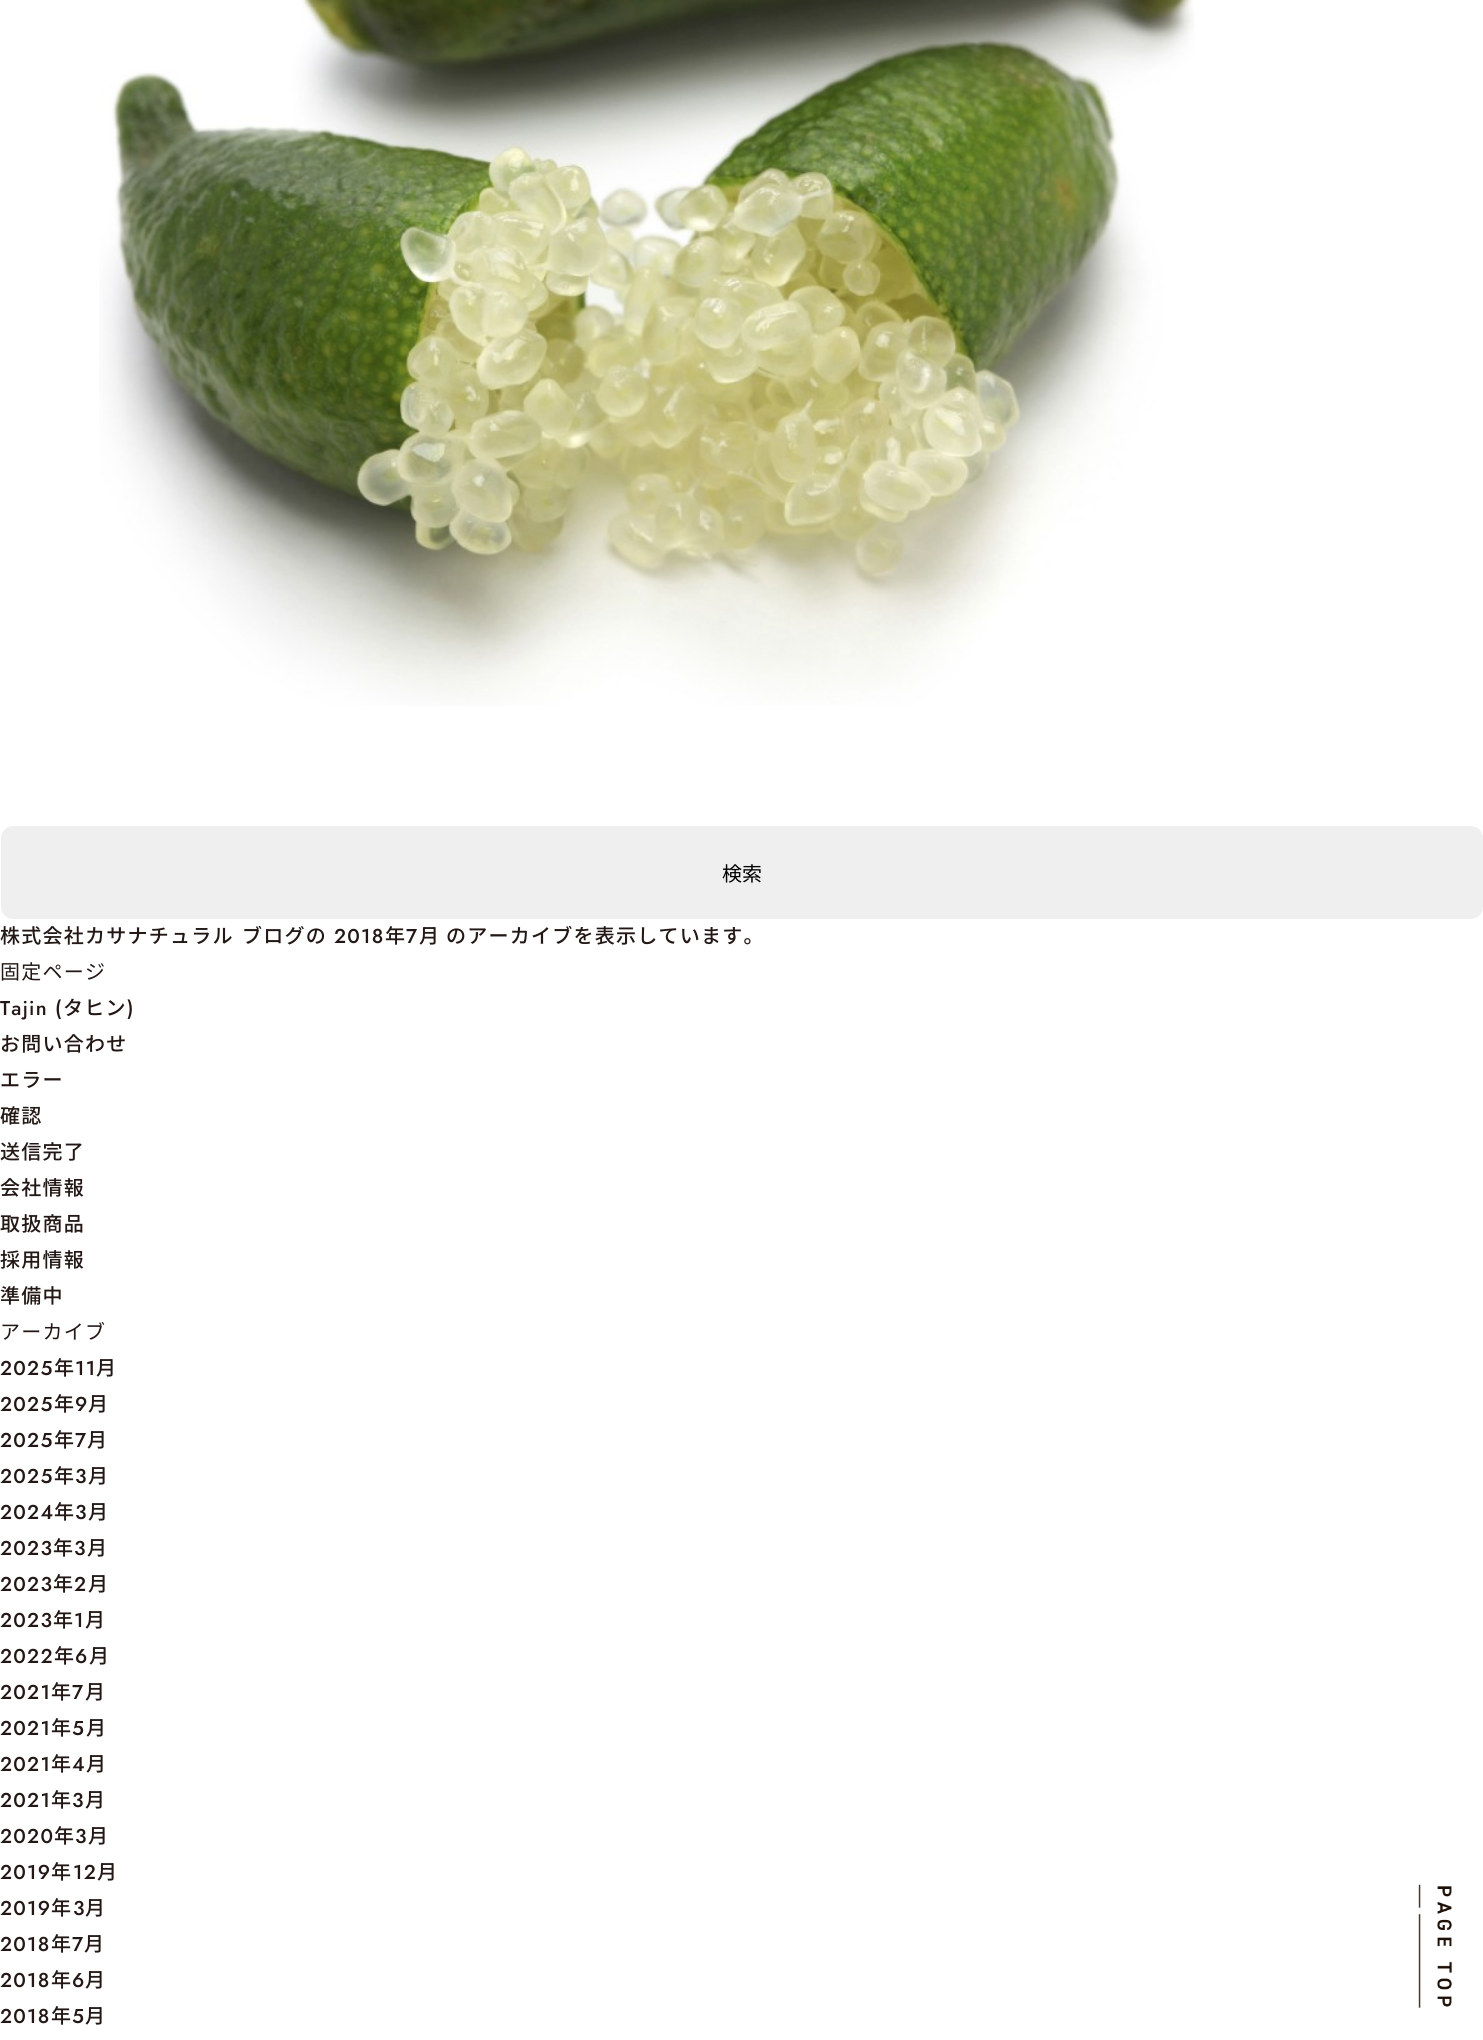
#include <cairo.h>
#include <math.h>
#include <stddef.h>

static cairo_t *c;
static void C(unsigned color){cairo_set_source_rgb(c, (color >> 16) / 255.0, (color >> 8 & 255) / 255.0, (color & 255) / 255.0);}
static void F(const char *family, double size, int italic, int bold){cairo_select_font_face(c, family, italic ? CAIRO_FONT_SLANT_ITALIC : CAIRO_FONT_SLANT_NORMAL,bold ? CAIRO_FONT_WEIGHT_BOLD : CAIRO_FONT_WEIGHT_NORMAL);cairo_set_font_size(c, size);}
static void T(double x, double y, const char *s){cairo_move_to(c, x, y);cairo_show_text(c, s);}
static void L(double x, double y, const char *s, double letter, double word){cairo_move_to(c, x, y);while (*s) {char ch[5] = {0};int n = 0;do ch[n++] = *s++; while ((*s & 0xC0) == 0x80);cairo_show_text(c, ch);cairo_rel_move_to(c, letter + word * (*ch == ' '), 0);}}
static void Q(double x, double y, double w, double h, double r){cairo_new_sub_path(c);cairo_arc(c, x + w - r, y + h - r, r, 0, M_PI / 2);cairo_arc(c, x + r, y + h - r, r, M_PI / 2, M_PI);cairo_arc(c, x + r, y + r, r, M_PI, 1.5 * M_PI);cairo_arc(c, x + w - r, y + r, r, 1.5 * M_PI, 2 * M_PI);cairo_close_path(c);}
static void I(const char *path, double x, double y, double w, double h){cairo_surface_t *image = cairo_image_surface_create_from_png(path);cairo_save(c);cairo_set_source_surface(c, image, x, y);cairo_rectangle(c, x, y, w, h);cairo_fill(c);cairo_restore(c);cairo_surface_destroy(image);}
int main(void) {
cairo_surface_t *surface = cairo_image_surface_create(CAIRO_FORMAT_RGB24, 1483, 2040);
c = cairo_create(surface);
cairo_font_options_t *options = cairo_font_options_create();
cairo_font_options_set_hint_metrics(options, CAIRO_HINT_METRICS_OFF);
cairo_font_options_set_hint_style(options, CAIRO_HINT_STYLE_NONE);
cairo_set_font_options(c, options);
cairo_set_miter_limit(c, 4);
C(0xffffff);
cairo_paint(c);
I("1.png",99,0,1096,706);
C(0xefefef);
Q(.5,825.5,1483,94,12.5);
cairo_fill_preserve(c);
C(0xffffff);
cairo_set_line_width(c,1);
cairo_stroke(c);
F("Noto Sans JP",20,0,0);
C(0x000000);
T(722,881,"検索");
F("Noto Sans JP Medium",20,0,0);
C(0x231815);
L(0,943,"株式会社カサナチュラル",1.25,0);
L(242,943,"ブログの",1.25,0);
F("Jost Medium",20,0,0);
L(334,943,"2018",1.25,0);
F("Noto Sans JP Medium",20,0,0);
L(385,943,"年",1.25,0);
F("Jost Medium",20,0,0);
L(406,943,"7",1.25,0);
F("Noto Sans JP Medium",20,0,0);
L(419,943,"月 のアーカイブを表示しています。",1.25,0);
F("Noto Sans JP",20,0,0);
L(0,979,"固定ページ",1.25,0);
F("Jost Medium",20,0,0);
L(0,1015,"Tajin (",1.25,0);
F("Noto Sans JP Medium",20,0,0);
L(63,1015,"タヒン",1.25,0);
F("Jost Medium",20,0,0);
L(127,1015,")",1.25,0);
F("Noto Sans JP Medium",20,0,0);
L(0,1051,"お問い合わせ",1.25,0);
L(0,1087,"エラー",1.25,0);
L(0,1123,"確認",1.25,0);
L(0,1159,"送信完了",1.25,0);
L(0,1195,"会社情報",1.25,0);
L(0,1231,"取扱商品",1.25,0);
L(0,1267,"採用情報",1.25,0);
L(0,1303,"準備中",1.25,0);
F("Noto Sans JP",20,0,0);
L(0,1339,"アーカイブ",1.25,0);
F("Jost Medium",20,0,0);
L(0,1375,"2025",1.25,0);
F("Noto Sans JP Medium",20,0,0);
L(54,1375,"年",1.25,0);
F("Jost Medium",20,0,0);
L(75,1375,"11",1.25,0);
F("Noto Sans JP Medium",20,0,0);
L(96,1375,"月",1.25,0);
F("Jost Medium",20,0,0);
L(0,1411,"2025",1.25,0);
F("Noto Sans JP Medium",20,0,0);
L(54,1411,"年",1.25,0);
F("Jost Medium",20,0,0);
L(75,1411,"9",1.25,0);
F("Noto Sans JP Medium",20,0,0);
L(88,1411,"月",1.25,0);
F("Jost Medium",20,0,0);
L(0,1447,"2025",1.25,0);
F("Noto Sans JP Medium",20,0,0);
L(54,1447,"年",1.25,0);
F("Jost Medium",20,0,0);
L(75,1447,"7",1.25,0);
F("Noto Sans JP Medium",20,0,0);
L(87,1447,"月",1.25,0);
F("Jost Medium",20,0,0);
L(0,1483,"2025",1.25,0);
F("Noto Sans JP Medium",20,0,0);
L(54,1483,"年",1.25,0);
F("Jost Medium",20,0,0);
L(75,1483,"3",1.25,0);
F("Noto Sans JP Medium",20,0,0);
L(88,1483,"月",1.25,0);
F("Jost Medium",20,0,0);
L(0,1519,"2024",1.25,0);
F("Noto Sans JP Medium",20,0,0);
L(54,1519,"年",1.25,0);
F("Jost Medium",20,0,0);
L(75,1519,"3",1.25,0);
F("Noto Sans JP Medium",20,0,0);
L(88,1519,"月",1.25,0);
F("Jost Medium",20,0,0);
L(0,1555,"2023",1.25,0);
F("Noto Sans JP Medium",20,0,0);
L(53,1555,"年",1.25,0);
F("Jost Medium",20,0,0);
L(74,1555,"3",1.25,0);
F("Noto Sans JP Medium",20,0,0);
L(87,1555,"月",1.25,0);
F("Jost Medium",20,0,0);
L(0,1591,"2023",1.25,0);
F("Noto Sans JP Medium",20,0,0);
L(53,1591,"年",1.25,0);
F("Jost Medium",20,0,0);
L(74,1591,"2",1.25,0);
F("Noto Sans JP Medium",20,0,0);
L(88,1591,"月",1.25,0);
F("Jost Medium",20,0,0);
L(0,1627,"2023",1.25,0);
F("Noto Sans JP Medium",20,0,0);
L(53,1627,"年",1.25,0);
F("Jost Medium",20,0,0);
L(74,1627,"1",1.25,0);
F("Noto Sans JP Medium",20,0,0);
L(85,1627,"月",1.25,0);
F("Jost Medium",20,0,0);
L(0,1663,"2022",1.25,0);
F("Noto Sans JP Medium",20,0,0);
L(54,1663,"年",1.25,0);
F("Jost Medium",20,0,0);
L(75,1663,"6",1.25,0);
F("Noto Sans JP Medium",20,0,0);
L(89,1663,"月",1.25,0);
F("Jost Medium",20,0,0);
L(0,1699,"2021",1.25,0);
F("Noto Sans JP Medium",20,0,0);
L(51,1699,"年",1.25,0);
F("Jost Medium",20,0,0);
L(72,1699,"7",1.25,0);
F("Noto Sans JP Medium",20,0,0);
L(85,1699,"月",1.25,0);
F("Jost Medium",20,0,0);
L(0,1735,"2021",1.25,0);
F("Noto Sans JP Medium",20,0,0);
L(51,1735,"年",1.25,0);
F("Jost Medium",20,0,0);
L(72,1735,"5",1.25,0);
F("Noto Sans JP Medium",20,0,0);
L(86,1735,"月",1.25,0);
F("Jost Medium",20,0,0);
L(0,1771,"2021",1.25,0);
F("Noto Sans JP Medium",20,0,0);
L(51,1771,"年",1.25,0);
F("Jost Medium",20,0,0);
L(72,1771,"4",1.25,0);
F("Noto Sans JP Medium",20,0,0);
L(86,1771,"月",1.25,0);
F("Jost Medium",20,0,0);
L(0,1807,"2021",1.25,0);
F("Noto Sans JP Medium",20,0,0);
L(51,1807,"年",1.25,0);
F("Jost Medium",20,0,0);
L(72,1807,"3",1.25,0);
F("Noto Sans JP Medium",20,0,0);
L(85,1807,"月",1.25,0);
F("Jost Medium",20,0,0);
L(0,1843,"2020",1.25,0);
F("Noto Sans JP Medium",20,0,0);
L(54,1843,"年",1.25,0);
F("Jost Medium",20,0,0);
L(75,1843,"3",1.25,0);
F("Noto Sans JP Medium",20,0,0);
L(88,1843,"月",1.25,0);
F("Jost Medium",20,0,0);
L(0,1879,"2019",1.25,0);
F("Noto Sans JP Medium",20,0,0);
L(51,1879,"年",1.25,0);
F("Jost Medium",20,0,0);
L(73,1879,"12",1.25,0);
F("Noto Sans JP Medium",20,0,0);
L(97,1879,"月",1.25,0);
F("Jost Medium",20,0,0);
L(0,1915,"2019",1.25,0);
F("Noto Sans JP Medium",20,0,0);
L(51,1915,"年",1.25,0);
F("Jost Medium",20,0,0);
L(73,1915,"3",1.25,0);
F("Noto Sans JP Medium",20,0,0);
L(85,1915,"月",1.25,0);
F("Jost Medium",20,0,0);
L(0,1951,"2018",1.25,0);
F("Noto Sans JP Medium",20,0,0);
L(51,1951,"年",1.25,0);
F("Jost Medium",20,0,0);
L(72,1951,"7",1.25,0);
F("Noto Sans JP Medium",20,0,0);
L(84,1951,"月",1.25,0);
F("Jost Medium",20,0,0);
L(0,1987,"2018",1.25,0);
F("Noto Sans JP Medium",20,0,0);
L(51,1987,"年",1.25,0);
F("Jost Medium",20,0,0);
L(72,1987,"6",1.25,0);
F("Noto Sans JP Medium",20,0,0);
L(85,1987,"月",1.25,0);
F("Jost Medium",20,0,0);
L(0,2023,"2018",1.25,0);
F("Noto Sans JP Medium",20,0,0);
L(51,2023,"年",1.25,0);
F("Jost Medium",20,0,0);
L(72,2023,"5",1.25,0);
F("Noto Sans JP Medium",20,0,0);
L(85,2023,"月",1.25,0);
I("2.png",1418,1884,35,124);
cairo_surface_write_to_png(surface, "o.png");
cairo_font_options_destroy(options);
cairo_destroy(c);
cairo_surface_destroy(surface);
return 0;
}
